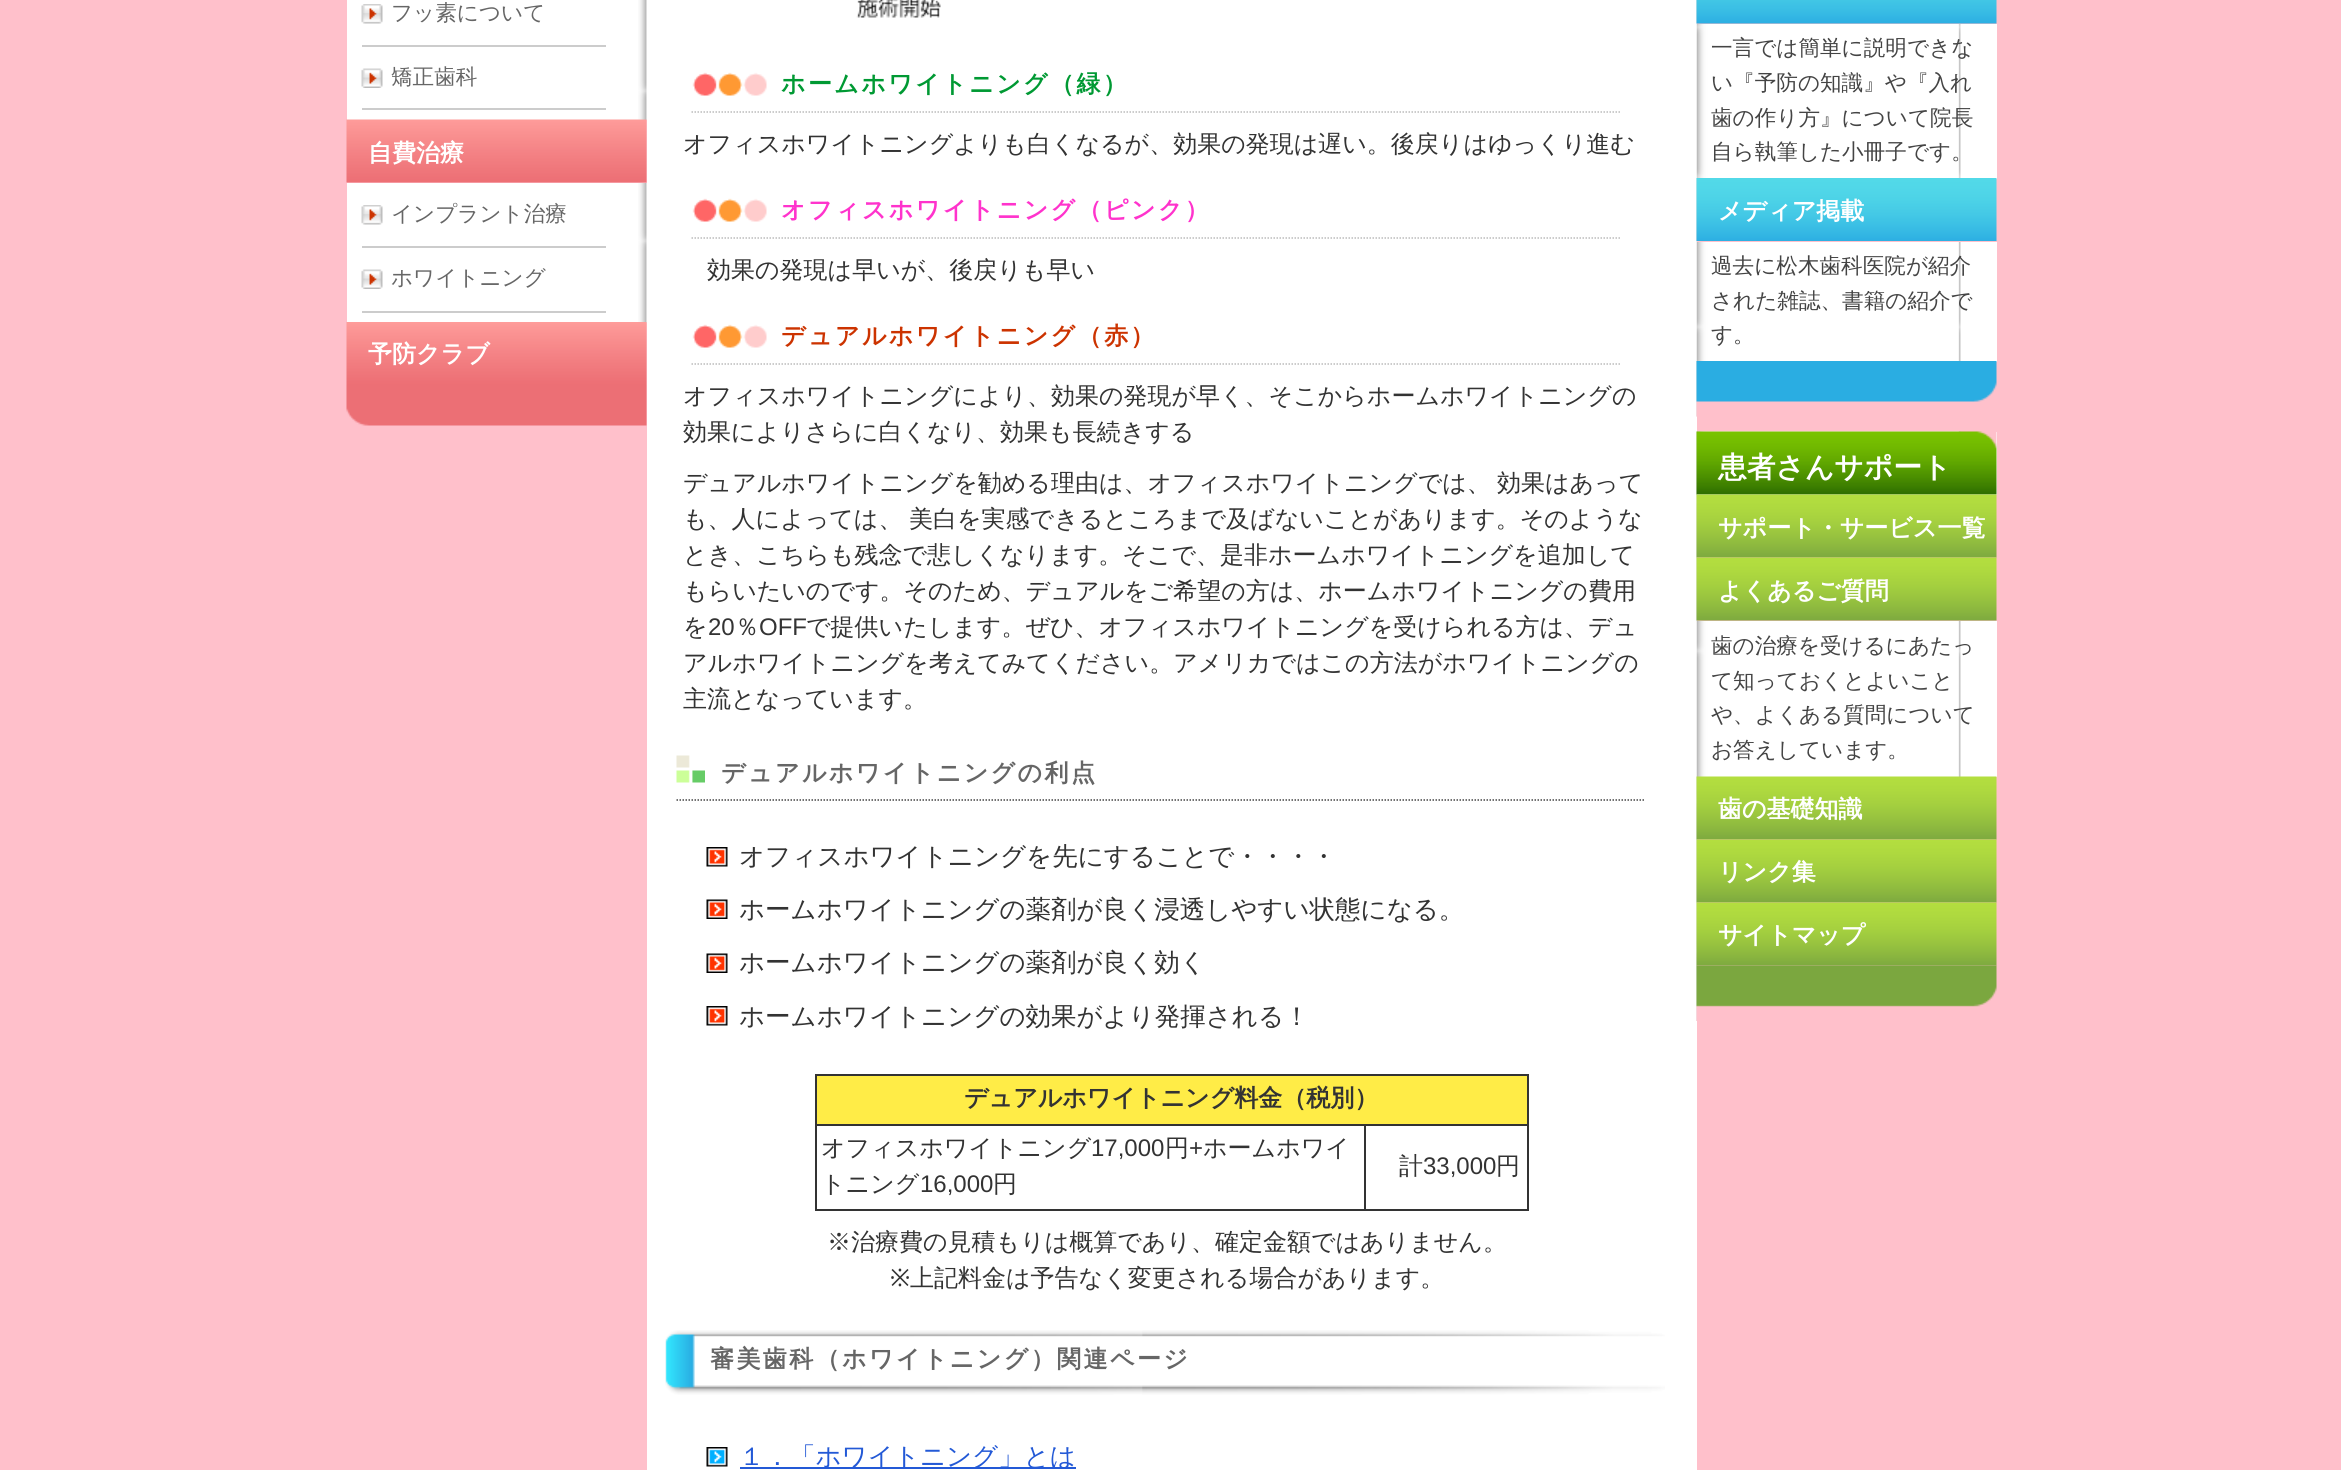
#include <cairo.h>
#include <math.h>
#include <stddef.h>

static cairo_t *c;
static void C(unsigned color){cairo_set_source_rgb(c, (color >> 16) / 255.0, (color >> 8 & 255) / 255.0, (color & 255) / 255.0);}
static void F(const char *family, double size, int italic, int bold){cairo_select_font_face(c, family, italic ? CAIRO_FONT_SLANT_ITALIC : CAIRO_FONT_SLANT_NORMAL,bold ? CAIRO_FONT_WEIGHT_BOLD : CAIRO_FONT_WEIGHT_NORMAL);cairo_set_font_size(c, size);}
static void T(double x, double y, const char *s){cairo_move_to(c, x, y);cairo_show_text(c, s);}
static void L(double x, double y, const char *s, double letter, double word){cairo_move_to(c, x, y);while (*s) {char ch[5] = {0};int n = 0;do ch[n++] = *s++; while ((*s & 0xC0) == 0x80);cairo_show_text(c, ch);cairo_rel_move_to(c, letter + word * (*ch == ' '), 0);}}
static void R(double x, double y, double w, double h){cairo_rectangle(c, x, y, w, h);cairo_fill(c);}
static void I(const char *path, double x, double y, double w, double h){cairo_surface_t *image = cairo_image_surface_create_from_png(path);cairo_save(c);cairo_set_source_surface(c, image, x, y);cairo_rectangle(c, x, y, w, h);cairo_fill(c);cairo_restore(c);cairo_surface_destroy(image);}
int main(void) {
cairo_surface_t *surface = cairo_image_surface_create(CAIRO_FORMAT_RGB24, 2341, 1470);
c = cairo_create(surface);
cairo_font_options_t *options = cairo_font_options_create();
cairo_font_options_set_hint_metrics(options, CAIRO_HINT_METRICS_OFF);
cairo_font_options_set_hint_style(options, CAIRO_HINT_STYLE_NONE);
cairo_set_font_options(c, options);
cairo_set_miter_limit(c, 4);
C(0xffc0cb);
cairo_paint(c);
C(0xffffff);
R(347,0,300,323);
I("1.png",638,0,9,323);
I("2.png",361,4,22,20);
C(0xcccccc);
R(362,45,244,2);
F("WenQuanYi Zen Hei Medium",21.6,0,0);
C(0x666666);
T(391,20,"フッ素について");
I("3.png",361,68,22,20);
C(0xcccccc);
R(362,108,244,2);
C(0x666666);
T(391,84,"矯正歯科");
C(0xffc0cb);
R(347,120,300,63);
I("4.png",346,119,301,64);
F("WenQuanYi Zen Hei",24,0,1);
C(0xffffff);
T(368,161,"自費治療");
I("2.png",361,205,22,20);
C(0xcccccc);
R(362,246,244,2);
F("WenQuanYi Zen Hei Medium",21.6,0,0);
C(0x666666);
T(391,221,"インプラント治療");
I("3.png",361,269,22,20);
C(0xcccccc);
R(362,311,244,2);
C(0x666666);
T(391,285,"ホワイトニング");
I("5.png",346,322,301,63);
F("WenQuanYi Zen Hei",24,0,1);
C(0xffffff);
T(368,362,"予防クラブ");
I("6.png",346,385,301,41);
R(647,0,1050,1470);
I("7.png",856,0,85,18);
I("8.png",692,72,75,24);
cairo_new_path(c);
cairo_move_to(c,691.5,112);
cairo_line_to(c,1621.5,112);
C(0xbbbbbb);
cairo_set_line_width(c,1.5);
cairo_set_dash(c,(double[]){1.5,1.5},2,0);
cairo_stroke(c);
C(0x009933);
L(781,92,"ホームホワイトニング（緑）",2.4,0);
F("WenQuanYi Zen Hei Medium",24,0,0);
C(0x333333);
T(683,152,"オフィスホワイトニングよりも白くなるが、効果の発現は遅い。後戻りはゆっくり進む");
I("8.png",692,198,75,24);
cairo_new_path(c);
cairo_move_to(c,691.5,238);
cairo_line_to(c,1621.5,238);
C(0xbbbbbb);
cairo_stroke(c);
F("WenQuanYi Zen Hei",24,0,1);
C(0xff33cc);
L(781,218,"オフィスホワイトニング（ピンク）",2.4,0);
F("WenQuanYi Zen Hei Medium",24,0,0);
C(0x333333);
T(707,278,"効果の発現は早いが、後戻りも早い");
I("8.png",692,324,75,24);
cairo_new_path(c);
cairo_move_to(c,691.5,364);
cairo_line_to(c,1621.5,364);
C(0xbbbbbb);
cairo_stroke(c);
F("WenQuanYi Zen Hei",24,0,1);
C(0xcc3300);
L(781,344,"デュアルホワイトニング（赤）",2.4,0);
F("WenQuanYi Zen Hei Medium",24,0,0);
C(0x333333);
T(683,404,"オフィスホワイトニングにより、効果の発現が早く、そこからホームホワイトニングの");
T(683,440,"効果によりさらに白くなり、効果も長続きする");
L(683,491,"デュアルホワイトニングを勧める理由は、オフィスホワイトニングでは、 効果はあって",0,-1);
T(683,527,"も、人によっては、");
T(909,527,"美白を実感できるところまで及ばないことがあります。そのような");
T(683,563,"とき、こちらも残念で悲しくなります。そこで、是非ホームホワイトニングを追加して");
T(683,599,"もらいたいのです。そのため、デュアルをご希望の方は、ホームホワイトニングの費用");
T(683,635,"を");
F("Liberation Sans",24,0,0);
T(708,635,"20");
F("WenQuanYi Zen Hei Medium",24,0,0);
T(735,635,"％");
F("Liberation Sans",24,0,0);
T(759,635,"OFF");
F("WenQuanYi Zen Hei Medium",24,0,0);
T(806,635,"で提供いたします。ぜひ、オフィスホワイトニングを受けられる方は、デュ");
T(683,671,"アルホワイトニングを考えてみてください。アメリカではこの方法がホワイトニングの");
T(683,707,"主流となっています。");
I("9.png",676,755,29,28);
cairo_new_path(c);
cairo_move_to(c,676.5,800);
cairo_line_to(c,1644,800);
C(0x444444);
cairo_stroke(c);
F("WenQuanYi Zen Hei",24,0,1);
C(0x666666);
L(721,781,"デュアルホワイトニングの利点",2.4,0);
I("10.png",706,847,22,20);
F("WenQuanYi Zen Hei Medium",25.5,0,0);
C(0x333333);
T(739,865,"オフィスホワイトニングを先にすることで・・・・");
I("11.png",706,899,22,20);
T(739,918,"ホームホワイトニングの薬剤が良く浸透しやすい状態になる。");
I("11.png",706,953,22,20);
T(739,971,"ホームホワイトニングの薬剤が良く効く");
I("10.png",706,1006,22,20);
T(739,1025,"ホームホワイトニングの効果がより発揮される！");
R(815,1074,714,2);
R(1527,1074,2,137);
R(815,1209,714,2);
R(815,1074,2,137);
C(0xffec47);
R(817,1076,710,48);
F("WenQuanYi Zen Hei",24,0,1);
C(0x333333);
T(964,1106,"デュアルホワイトニング料金（税別）");
R(1364,1124,165,2);
R(1364,1124,2,87);
R(815,1124,550,2);
F("WenQuanYi Zen Hei Medium",24,0,0);
T(821,1156,"オフィスホワイトニング");
F("Liberation Sans",24,0,0);
T(1091,1156,"17,000");
F("WenQuanYi Zen Hei Medium",24,0,0);
T(1165,1156,"円");
F("Liberation Sans",24,0,0);
T(1189,1156,"+");
F("WenQuanYi Zen Hei Medium",24,0,0);
T(1203,1156,"ホームホワイ");
T(821,1192,"トニング");
F("Liberation Sans",24,0,0);
T(920,1192,"16,000");
F("WenQuanYi Zen Hei Medium",24,0,0);
T(993,1192,"円");
T(1399,1174,"計");
F("Liberation Sans",24,0,0);
T(1423,1174,"33,000");
F("WenQuanYi Zen Hei Medium",24,0,0);
T(1496,1174,"円");
T(827,1250,"※治療費の見積もりは概算であり、確定金額ではありません。");
F("Noto Sans",24,0,0);
T(890,1286,"※");
F("WenQuanYi Zen Hei Medium",24,0,0);
T(910,1286,"上記料金は予告なく変更される場合があります。");
I("12.png",665,1330,1000,65);
F("WenQuanYi Zen Hei",24,0,1);
C(0x666666);
L(710,1367,"審美歯科（ホワイトニング）関連ページ",2.4,0);
I("13.png",706,1447,22,20);
C(0x2359d6);
R(740,1467,336,2);
F("WenQuanYi Zen Hei Medium",25.5,0,0);
T(739,1465,"１．「ホワイトニング」とは");
C(0xffffff);
R(1960,24,37,338);
I("14.png",1696,0,265,417);
C(0xffc0cb);
R(1697,0,264,24);
I("15.png",1696,0,301,24);
F("WenQuanYi Zen Hei Medium",21.6,0,0);
C(0x444444);
T(1711,55,"一言では簡単に説明できな");
T(1711,90,"い『予防の知識』や『入れ");
T(1711,125,"歯の作り方』について院長");
T(1711,159,"自ら執筆した小冊子です。");
C(0xffc0cb);
R(1697,179,300,63);
I("16.png",1696,178,301,63);
F("WenQuanYi Zen Hei",24,0,1);
C(0xffffff);
T(1718,219,"メディア掲載");
F("WenQuanYi Zen Hei Medium",21.6,0,0);
C(0x444444);
T(1711,273,"過去に松木歯科医院が紹介");
T(1711,308,"された雑誌、書籍の紹介で");
T(1711,342,"す。");
C(0xffc0cb);
R(1697,362,264,55);
I("17.png",1696,361,301,56);
C(0xffffff);
R(1960,621,37,156);
I("18.png",1696,431,265,590);
R(1697,432,300,63);
I("19.png",1696,431,301,64);
F("WenQuanYi Zen Hei",28.75,0,1);
T(1718,477,"患者さんサポート");
C(0xffc0cb);
R(1697,495,264,126);
I("20.png",1696,494,301,64);
F("WenQuanYi Zen Hei",24,0,1);
C(0xffffff);
T(1718,536,"サポート・サービス一覧");
I("21.png",1696,557,301,64);
T(1718,599,"よくあるご質問");
F("WenQuanYi Zen Hei Medium",21.6,0,0);
C(0x444444);
T(1711,653,"歯の治療を受けるにあたっ");
T(1711,688,"て知っておくとよいこと");
T(1711,722,"や、よくある質問について");
T(1711,757,"お答えしています。");
C(0xffc0cb);
R(1697,777,264,244);
I("22.png",1696,776,301,64);
F("WenQuanYi Zen Hei",24,0,1);
C(0xffffff);
T(1718,817,"歯の基礎知識");
I("21.png",1696,839,301,64);
T(1718,880,"リンク集");
I("23.png",1696,902,301,64);
T(1718,943,"サイトマップ");
I("24.png",1696,965,301,56);
cairo_surface_write_to_png(surface, "o.png");
cairo_font_options_destroy(options);
cairo_destroy(c);
cairo_surface_destroy(surface);
return 0;
}
